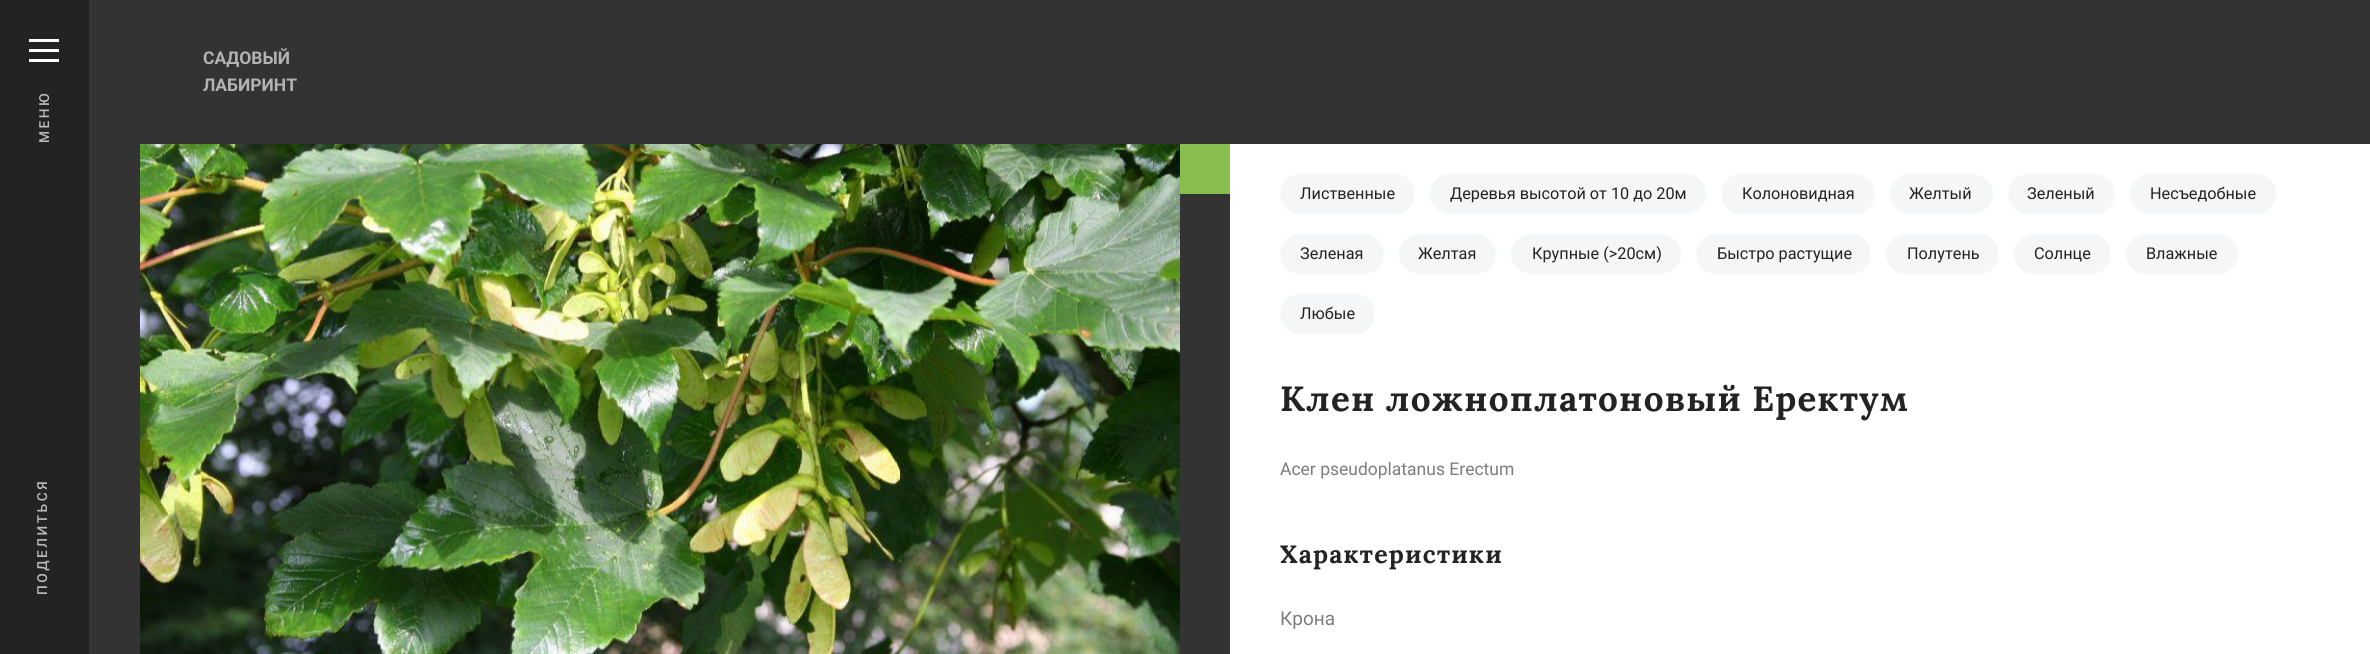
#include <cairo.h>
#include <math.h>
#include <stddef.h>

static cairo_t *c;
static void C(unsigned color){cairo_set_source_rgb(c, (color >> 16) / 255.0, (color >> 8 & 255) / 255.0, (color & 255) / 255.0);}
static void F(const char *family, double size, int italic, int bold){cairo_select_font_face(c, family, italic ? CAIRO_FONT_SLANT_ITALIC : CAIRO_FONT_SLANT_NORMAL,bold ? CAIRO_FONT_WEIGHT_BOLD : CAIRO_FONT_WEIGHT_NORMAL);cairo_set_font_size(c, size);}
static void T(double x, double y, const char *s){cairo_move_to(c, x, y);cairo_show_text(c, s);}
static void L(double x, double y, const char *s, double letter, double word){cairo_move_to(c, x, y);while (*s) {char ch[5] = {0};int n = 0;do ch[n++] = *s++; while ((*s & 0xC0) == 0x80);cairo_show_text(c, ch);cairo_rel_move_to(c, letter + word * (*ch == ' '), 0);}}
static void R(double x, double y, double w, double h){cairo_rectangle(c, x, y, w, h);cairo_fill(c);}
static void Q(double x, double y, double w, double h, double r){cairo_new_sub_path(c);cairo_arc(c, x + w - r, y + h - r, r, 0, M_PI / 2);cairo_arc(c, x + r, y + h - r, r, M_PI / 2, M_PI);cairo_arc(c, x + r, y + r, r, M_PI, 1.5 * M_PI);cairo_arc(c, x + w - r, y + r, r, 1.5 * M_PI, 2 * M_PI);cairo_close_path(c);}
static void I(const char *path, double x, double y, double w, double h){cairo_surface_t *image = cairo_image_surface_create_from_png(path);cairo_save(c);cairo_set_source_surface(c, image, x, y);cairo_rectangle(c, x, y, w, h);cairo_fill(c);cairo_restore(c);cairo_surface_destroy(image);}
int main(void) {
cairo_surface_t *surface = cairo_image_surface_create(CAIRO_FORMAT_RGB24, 2370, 654);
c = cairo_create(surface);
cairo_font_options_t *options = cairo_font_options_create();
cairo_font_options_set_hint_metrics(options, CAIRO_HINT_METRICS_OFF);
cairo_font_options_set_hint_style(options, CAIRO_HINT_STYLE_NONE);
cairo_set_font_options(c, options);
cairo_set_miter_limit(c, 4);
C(0xffffff);
cairo_paint(c);
C(0x333333);
R(90,0,2280,144);
F("Roboto",17.5,0,1);
C(0xb3b3b3);
T(203,64,"САДОВЫЙ");
T(203,91,"ЛАБИРИНТ");
C(0x232323);
R(0,0,89,654);
C(0x333333);
R(89,0,1,654);
C(0xffffff);
R(29,39,30,3);
R(29,49,30,3);
R(29,59,30,3);
F("Roboto Medium",13.75,0,0);
C(0xbbbbbb);
cairo_save(c);
cairo_translate(c,49,143);
cairo_rotate(c,-90 * M_PI / 180);
L(0,0,"МЕНЮ",2.5,0);
cairo_restore(c);
cairo_save(c);
cairo_translate(c,47,595);
cairo_rotate(c,-90 * M_PI / 180);
L(0,0,"ПОДЕЛИТЬСЯ",2.5,0);
cairo_restore(c);
C(0x333333);
R(90,144,1140,510);
I("1.png",140,144,1040,510);
C(0x88be4e);
R(1180,144,50,50);
C(0xf5f6f8);
Q(1280,174,135,40,20);
cairo_fill(c);
F("Roboto",16.25,0,0);
C(0x232323);
T(1300,199,"Лиственные");
C(0xf5f6f8);
Q(1430,174,276,40,20);
cairo_fill(c);
C(0x232323);
T(1450,199,"Деревья высотой от 10 до 20м");
C(0xf5f6f8);
Q(1721,174,154,40,20);
cairo_fill(c);
C(0x232323);
T(1742,199,"Колоновидная");
C(0xf5f6f8);
Q(1890,174,103,40,20);
cairo_fill(c);
C(0x232323);
T(1909,199,"Желтый");
C(0xf5f6f8);
Q(2008,174,107,40,20);
cairo_fill(c);
C(0x232323);
T(2027,199,"Зеленый");
C(0xf5f6f8);
Q(2130,174,146,40,20);
cairo_fill(c);
C(0x232323);
T(2150,199,"Несъедобные");
C(0xf5f6f8);
Q(1280,234,104,40,20);
cairo_fill(c);
C(0x232323);
T(1300,259,"Зеленая");
C(0xf5f6f8);
Q(1399,234,97,40,20);
cairo_fill(c);
C(0x232323);
T(1418,259,"Желтая");
C(0xf5f6f8);
Q(1511,234,170,40,20);
cairo_fill(c);
C(0x232323);
T(1532,259,"Крупные (>20см)");
C(0xf5f6f8);
Q(1696,234,175,40,20);
cairo_fill(c);
C(0x232323);
T(1717,259,"Быстро растущие");
C(0xf5f6f8);
Q(1886,234,113,40,20);
cairo_fill(c);
C(0x232323);
T(1907,259,"Полутень");
C(0xf5f6f8);
Q(2014,234,97,40,20);
cairo_fill(c);
C(0x232323);
T(2034,259,"Солнце");
C(0xf5f6f8);
Q(2126,234,112,40,20);
cairo_fill(c);
C(0x232323);
T(2146,259,"Влажные");
C(0xf5f6f8);
Q(1280,294,95,40,20);
cairo_fill(c);
C(0x232323);
T(1300,319,"Любые");
F("Lora",35,0,1);
L(1280,411,"Клен ложноплатоновый Еректум",1.25,0);
F("Roboto",17.5,0,0);
C(0x7d7d7d);
T(1280,475,"Acer pseudoplatanus Erectum");
F("Lora",25,0,1);
C(0x232323);
L(1280,563,"Характеристики",1.25,0);
F("Roboto",19,0,0);
C(0x7d7d7d);
T(1280,625,"Крона");
cairo_surface_write_to_png(surface, "o.png");
cairo_font_options_destroy(options);
cairo_destroy(c);
cairo_surface_destroy(surface);
return 0;
}
